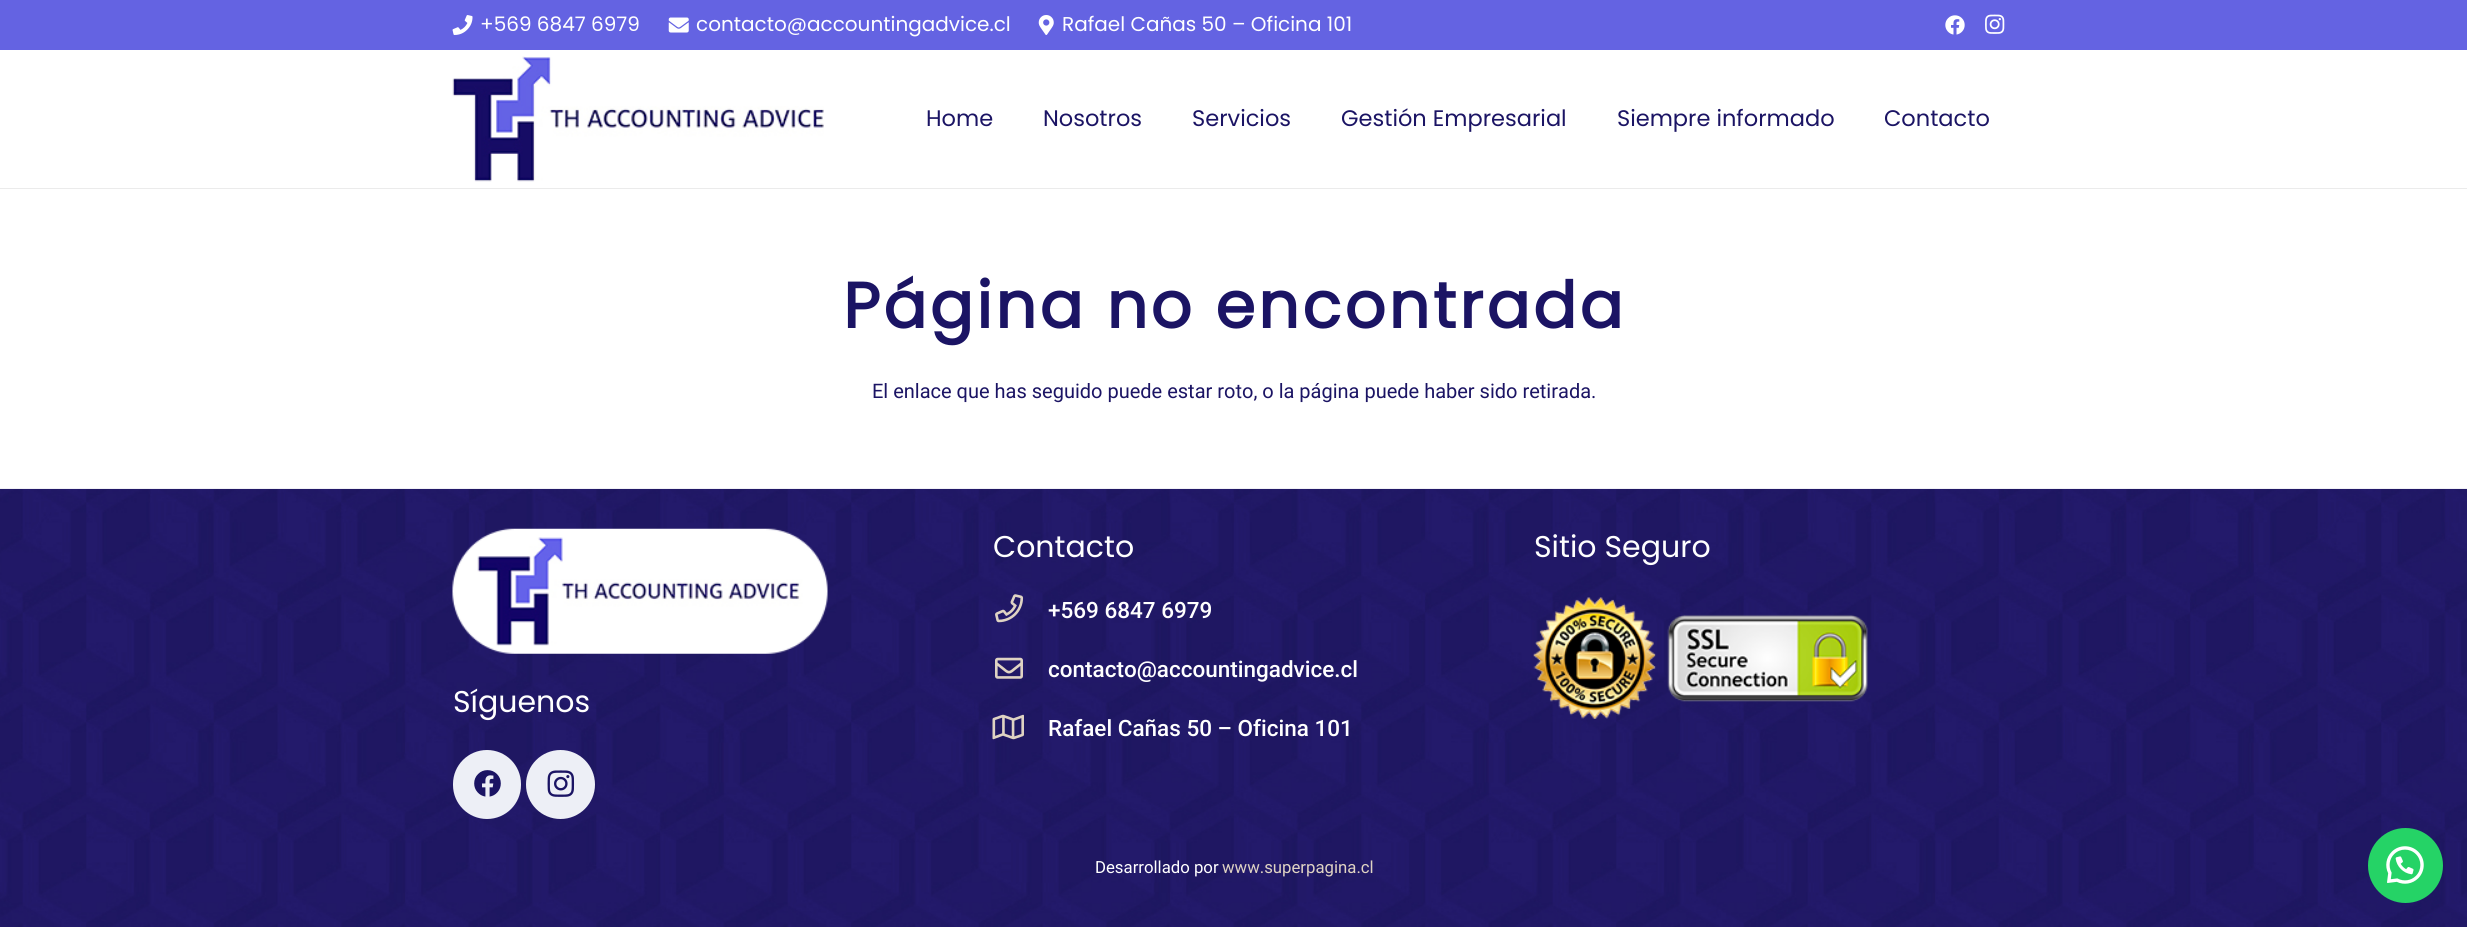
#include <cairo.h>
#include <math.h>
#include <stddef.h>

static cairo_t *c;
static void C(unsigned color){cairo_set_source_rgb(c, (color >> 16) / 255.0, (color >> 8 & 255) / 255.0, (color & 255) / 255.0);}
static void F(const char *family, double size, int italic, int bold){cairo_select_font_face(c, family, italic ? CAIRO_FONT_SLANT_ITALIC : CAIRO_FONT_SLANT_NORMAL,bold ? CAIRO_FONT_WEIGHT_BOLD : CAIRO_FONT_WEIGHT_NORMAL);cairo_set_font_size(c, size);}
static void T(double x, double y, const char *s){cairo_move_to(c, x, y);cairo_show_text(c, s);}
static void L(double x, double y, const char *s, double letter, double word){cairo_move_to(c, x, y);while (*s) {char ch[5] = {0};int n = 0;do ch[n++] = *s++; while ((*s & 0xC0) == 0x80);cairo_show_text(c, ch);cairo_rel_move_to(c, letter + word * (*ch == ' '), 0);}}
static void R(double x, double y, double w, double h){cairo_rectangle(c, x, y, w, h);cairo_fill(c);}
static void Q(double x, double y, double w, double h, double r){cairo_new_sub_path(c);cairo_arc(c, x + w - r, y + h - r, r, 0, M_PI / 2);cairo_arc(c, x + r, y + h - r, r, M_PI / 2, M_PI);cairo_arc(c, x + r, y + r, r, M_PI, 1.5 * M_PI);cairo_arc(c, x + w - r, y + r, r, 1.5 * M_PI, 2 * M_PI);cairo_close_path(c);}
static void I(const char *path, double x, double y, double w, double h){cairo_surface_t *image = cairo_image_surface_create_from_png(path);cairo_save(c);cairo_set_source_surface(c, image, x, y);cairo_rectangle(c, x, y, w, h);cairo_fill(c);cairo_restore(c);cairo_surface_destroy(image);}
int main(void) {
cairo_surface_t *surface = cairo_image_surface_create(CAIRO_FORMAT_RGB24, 2467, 927);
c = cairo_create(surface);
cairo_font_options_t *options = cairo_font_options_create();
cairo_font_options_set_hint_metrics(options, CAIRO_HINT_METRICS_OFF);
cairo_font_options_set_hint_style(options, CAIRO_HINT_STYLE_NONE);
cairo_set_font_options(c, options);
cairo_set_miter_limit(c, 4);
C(0xffffff);
cairo_paint(c);
C(0x6463e2);
R(0,0,2467,50);
I("1.png",452,15,21,20);
F("Poppins",20,0,0);
C(0xffffff);
T(480,31,"+569 6847 6979");
I("2.png",668,17,21,16);
T(696,31,"contacto@accountingadvice.cl");
I("3.png",1038,15,16,20);
T(1062,31,"Rafael Cañas 50 – Oficina 101");
I("4.png",1945,15,20,20);
I("5.png",1985,14,20,20);
C(0xebebeb);
cairo_new_path(c);
cairo_move_to(c,0,188);
cairo_line_to(c,0,189);
cairo_line_to(c,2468,189);
cairo_line_to(c,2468,51);
cairo_line_to(c,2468,188);
cairo_close_path(c);
cairo_fill(c);
I("6.png",452,56,372,126);
F("Poppins",22.5,0,0);
C(0x1b1464);
T(926,126,"Home");
T(1043,126,"Nosotros");
T(1192,126,"Servicios");
T(1341,126,"Gestión Empresarial");
T(1617,126,"Siempre informado");
T(1884,126,"Contacto");
F("Poppins",64,0,1);
L(843,328,"Página no encontrada",3.25,0);
F("Roboto",20,0,0);
T(872,398,"El enlace que has seguido puede estar roto, o la página puede haber sido retirada.");
I("7.png",0,488,2467,439);
I("8.png",452,528,376,126);
F("Poppins",30,0,0);
C(0xffffff);
T(453,712,"Síguenos");
C(0xedeff6);
Q(453,750,68,69,34);
cairo_fill(c);
I("9.png",474,770,27,27);
cairo_arc(c,560.5,784.5,34.5,0,2 * M_PI);
cairo_fill(c);
I("10.png",547,770,28,27);
C(0xffffff);
T(993,557,"Contacto");
I("11.png",995,594,29,29);
F("Roboto Medium",22.5,0,0);
T(1048,618,"+569 6847 6979");
I("12.png",995,657,28,22);
T(1048,677,"contacto@accountingadvice.cl");
I("13.png",992,714,32,26);
T(1048,736,"Rafael Cañas 50 – Oficina 101");
F("Poppins",30,0,0);
T(1534,557,"Sitio Seguro");
I("14.png",1533,597,335,122);
F("Roboto",16.75,0,0);
T(1095,873,"Desarrollado por");
C(0xdfd3c3);
T(1222,873,"www.superpagina.cl");
C(0x25d366);
cairo_new_path(c);
cairo_arc(c,2405.5,865.5,37.5,0,2 * M_PI);
cairo_fill(c);
I("15.png",2386,846,38,38);
cairo_surface_write_to_png(surface, "o.png");
cairo_font_options_destroy(options);
cairo_destroy(c);
cairo_surface_destroy(surface);
return 0;
}
